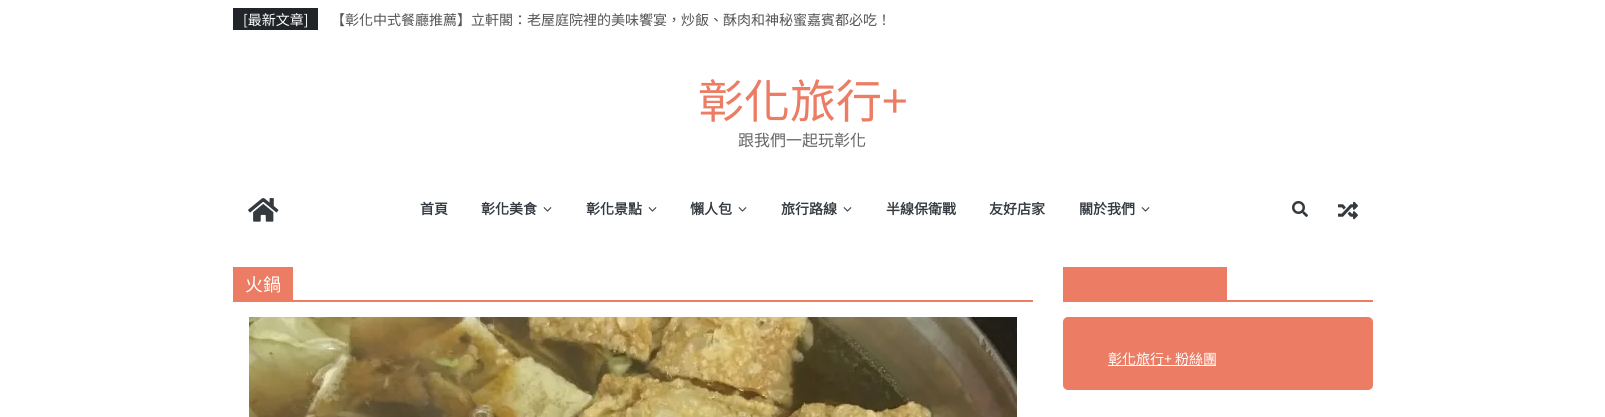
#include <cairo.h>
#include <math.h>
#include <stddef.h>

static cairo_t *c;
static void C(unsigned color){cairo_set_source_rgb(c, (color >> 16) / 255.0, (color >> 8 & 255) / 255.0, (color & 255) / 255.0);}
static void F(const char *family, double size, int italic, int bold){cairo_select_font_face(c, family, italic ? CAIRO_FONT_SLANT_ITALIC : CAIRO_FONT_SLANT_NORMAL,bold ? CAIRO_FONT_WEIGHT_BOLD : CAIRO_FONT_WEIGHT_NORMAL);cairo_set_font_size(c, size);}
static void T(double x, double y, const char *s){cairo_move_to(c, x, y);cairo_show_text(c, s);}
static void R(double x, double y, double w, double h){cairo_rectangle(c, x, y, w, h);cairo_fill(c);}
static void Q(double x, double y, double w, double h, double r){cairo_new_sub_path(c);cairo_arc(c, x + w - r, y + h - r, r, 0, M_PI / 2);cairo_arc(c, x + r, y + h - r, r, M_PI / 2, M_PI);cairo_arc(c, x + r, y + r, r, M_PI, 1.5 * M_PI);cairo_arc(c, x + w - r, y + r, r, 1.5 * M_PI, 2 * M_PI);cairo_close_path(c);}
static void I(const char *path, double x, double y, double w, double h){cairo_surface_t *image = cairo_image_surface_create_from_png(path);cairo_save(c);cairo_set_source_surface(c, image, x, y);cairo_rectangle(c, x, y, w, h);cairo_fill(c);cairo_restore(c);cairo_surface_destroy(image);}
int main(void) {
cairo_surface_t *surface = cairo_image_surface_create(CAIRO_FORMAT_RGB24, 1605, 417);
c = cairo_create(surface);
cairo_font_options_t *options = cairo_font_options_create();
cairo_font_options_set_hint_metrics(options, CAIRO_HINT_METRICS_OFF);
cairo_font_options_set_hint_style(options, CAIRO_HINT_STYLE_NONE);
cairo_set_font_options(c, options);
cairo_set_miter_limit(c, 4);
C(0xffffff);
cairo_paint(c);
C(0x212529);
R(233,8,85,22);
F("Noto Sans TC",14,0,0);
C(0xffffff);
T(243,25,"[最新文章]");
C(0x555555);
T(331,25,"【彰化中式餐廳推薦】立軒閣：老屋庭院裡的美味饗宴，炒飯、酥肉和神秘蜜嘉賓都必吃！");
F("Noto Sans TC",46,0,0);
C(0xec7c63);
T(698,118,"彰化旅行+");
F("Noto Sans TC",16,0,0);
C(0x666666);
T(738,146,"跟我們一起玩彰化");
I("1.png",248,198,31,24);
F("Noto Sans CJK TC",14,0,1);
C(0x343a40);
T(420,214,"首頁");
T(481,214,"彰化美食");
I("2.png",543,207,9,5);
T(586,214,"彰化景點");
I("2.png",648,207,9,5);
T(690,214,"懶人包");
I("2.png",738,207,9,5);
T(781,214,"旅行路線");
I("2.png",843,207,9,5);
T(886,214,"半線保衛戰");
T(989,214,"友好店家");
T(1079,214,"關於我們");
I("2.png",1141,207,9,5);
I("3.png",1292,201,16,16);
I("4.png",1338,201,20,19);
C(0xec7c63);
R(233,300,800,2);
R(233,267,60,33);
F("Noto Sans TC",18,0,0);
C(0xffffff);
T(245,291,"火鍋");
I("5.png",249,317,768,100);
C(0xec7c63);
R(1063,300,310,2);
R(1063,267,164,33);
Q(1063,317,310,73,5);
cairo_fill(c);
C(0xffffff);
R(1108,365,108,1);
F("Noto Sans TC",14,0,0);
T(1108,364,"彰化旅行+ 粉絲團");
cairo_surface_write_to_png(surface, "o.png");
cairo_font_options_destroy(options);
cairo_destroy(c);
cairo_surface_destroy(surface);
return 0;
}
